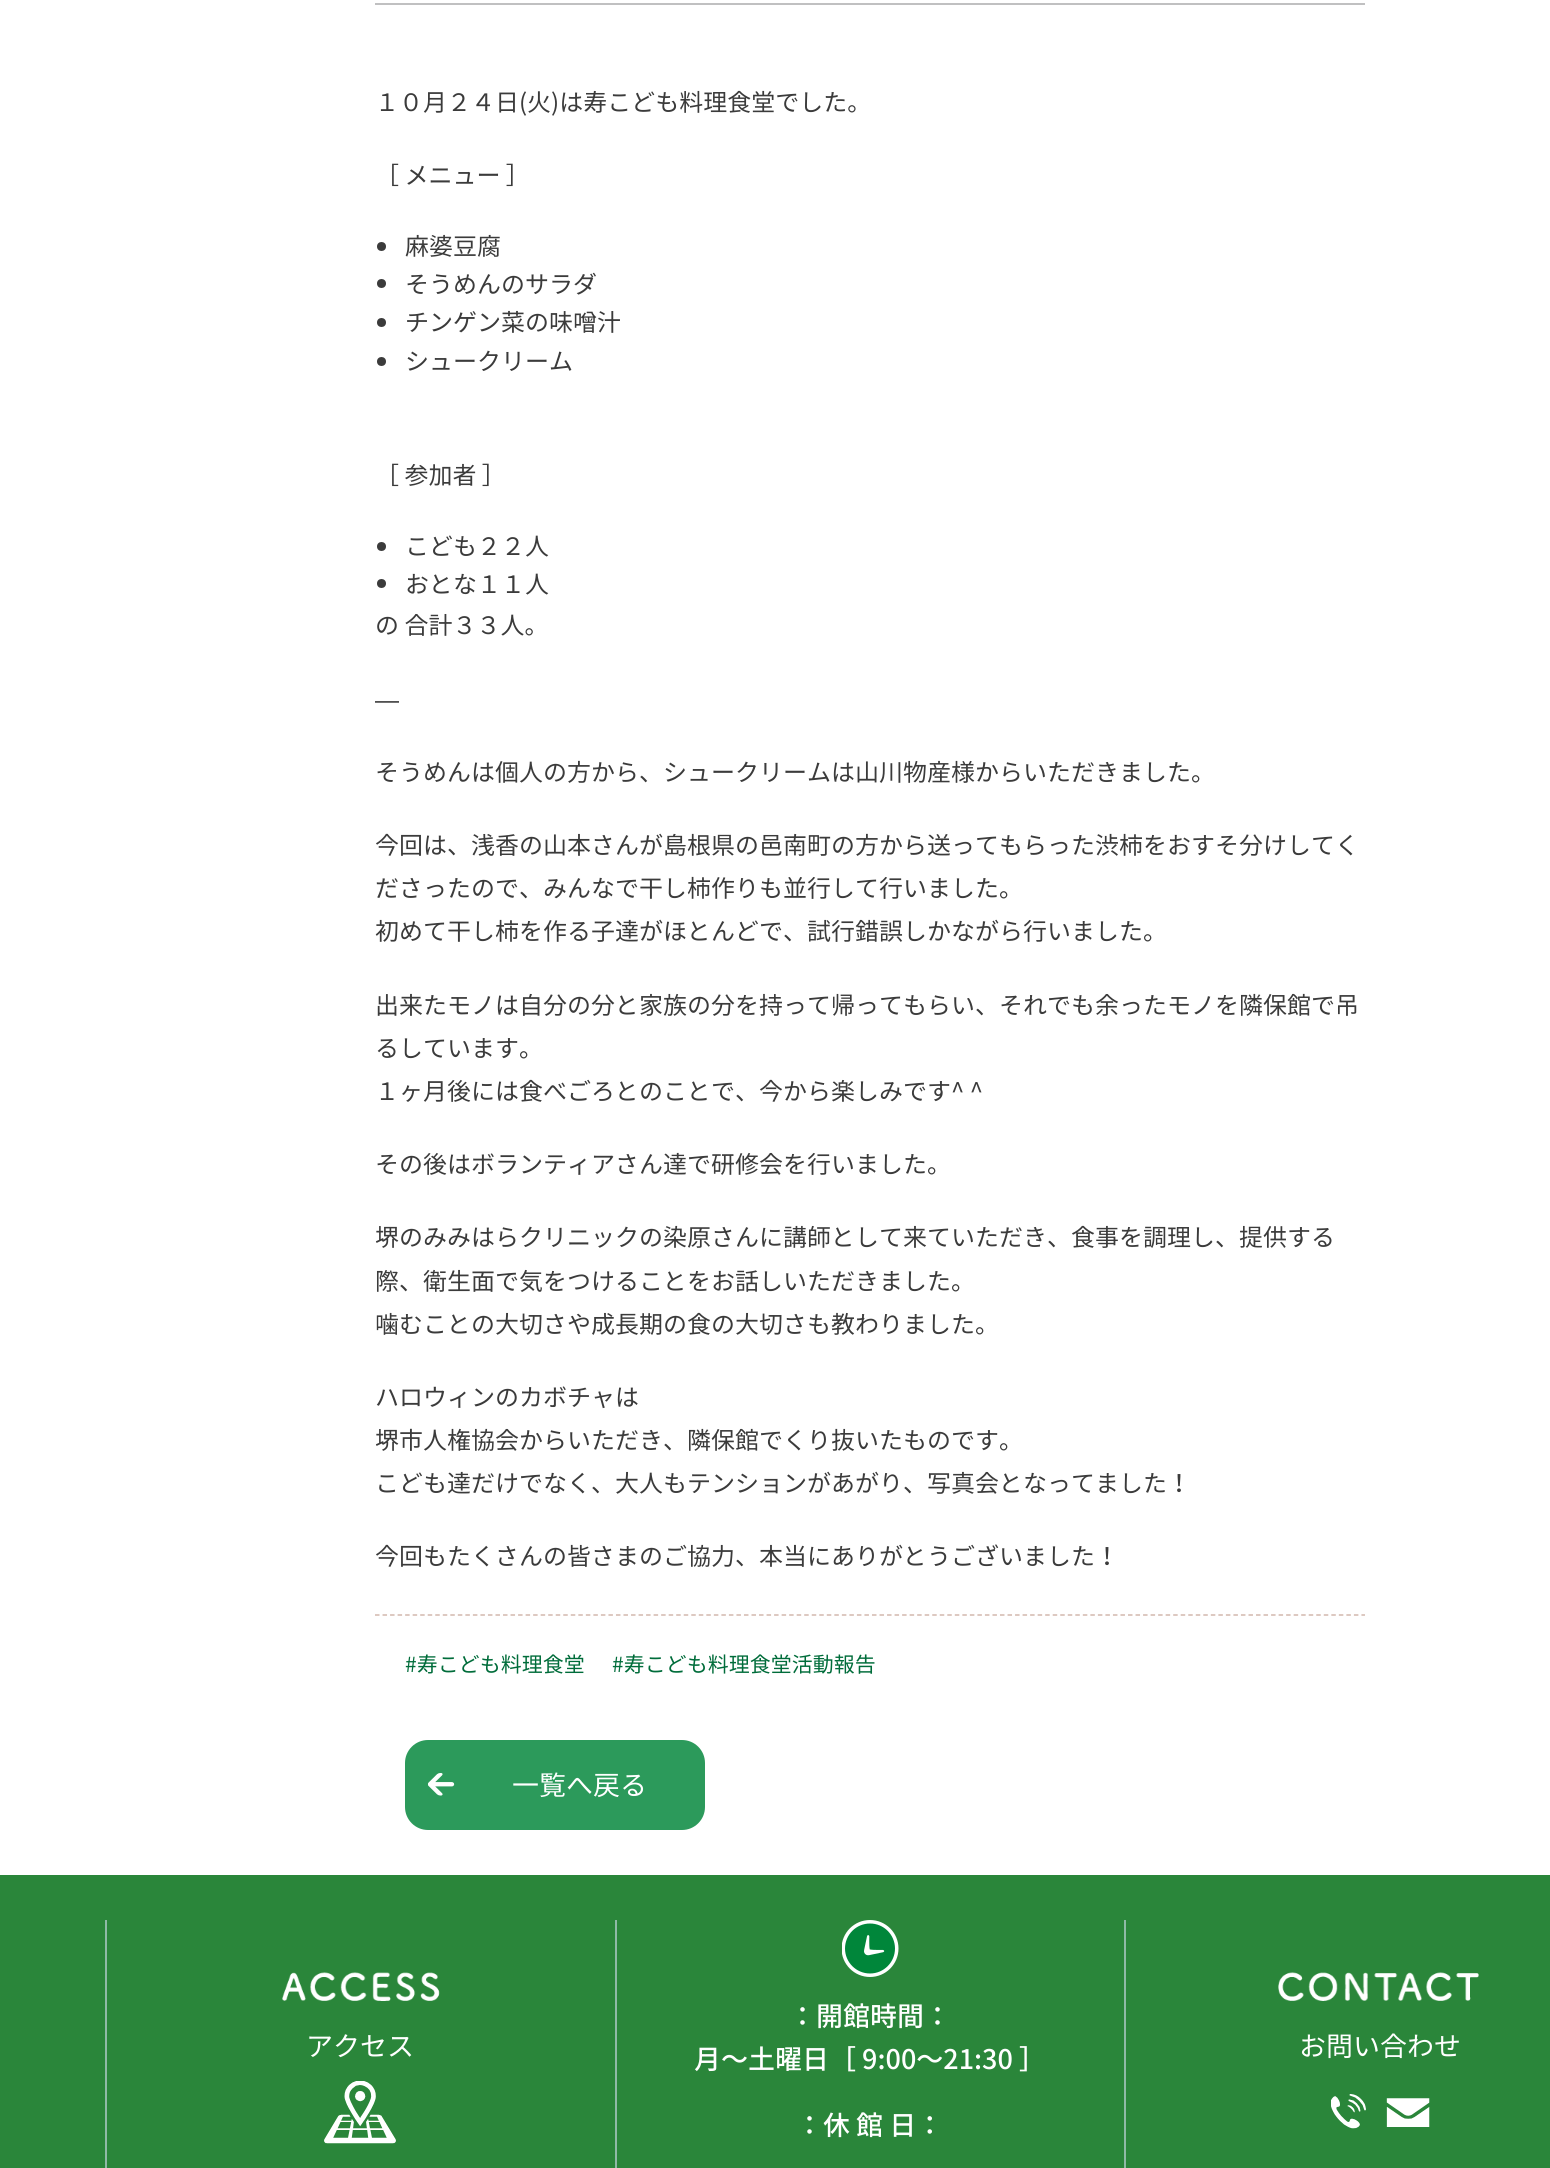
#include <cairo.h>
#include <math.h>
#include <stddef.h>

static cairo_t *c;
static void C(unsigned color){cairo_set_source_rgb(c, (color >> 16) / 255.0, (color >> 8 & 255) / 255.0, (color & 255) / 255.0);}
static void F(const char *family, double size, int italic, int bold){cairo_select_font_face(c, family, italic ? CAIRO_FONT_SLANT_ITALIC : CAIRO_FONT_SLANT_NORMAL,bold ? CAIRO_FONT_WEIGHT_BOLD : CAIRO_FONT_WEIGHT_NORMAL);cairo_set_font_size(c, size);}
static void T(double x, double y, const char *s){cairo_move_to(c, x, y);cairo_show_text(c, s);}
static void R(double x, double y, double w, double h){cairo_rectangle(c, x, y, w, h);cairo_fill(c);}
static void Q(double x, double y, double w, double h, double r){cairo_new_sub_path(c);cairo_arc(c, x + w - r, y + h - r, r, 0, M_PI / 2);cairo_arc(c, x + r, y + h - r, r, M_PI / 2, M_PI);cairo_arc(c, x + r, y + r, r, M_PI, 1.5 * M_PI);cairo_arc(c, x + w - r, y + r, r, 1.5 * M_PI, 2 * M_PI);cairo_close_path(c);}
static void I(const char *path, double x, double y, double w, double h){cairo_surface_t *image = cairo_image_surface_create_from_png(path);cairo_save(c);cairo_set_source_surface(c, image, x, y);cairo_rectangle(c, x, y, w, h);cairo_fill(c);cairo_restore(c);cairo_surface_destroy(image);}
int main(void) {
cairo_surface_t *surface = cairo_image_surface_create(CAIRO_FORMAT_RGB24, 1550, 2168);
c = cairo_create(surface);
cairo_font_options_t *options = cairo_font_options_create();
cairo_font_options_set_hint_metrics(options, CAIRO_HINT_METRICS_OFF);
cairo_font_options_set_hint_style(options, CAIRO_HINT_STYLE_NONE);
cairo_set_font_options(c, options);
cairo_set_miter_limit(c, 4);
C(0xffffff);
cairo_paint(c);
C(0xc0c0c1);
R(375,3,990,2);
F("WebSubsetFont",24,0,0);
C(0x3b3b3b);
T(375,111,"１０月２４日(火)は寿こども料理食堂でした。");
T(375,184,"［ メニュー ］");
cairo_new_path(c);
cairo_arc(c,381.5,246.5,4.5,0,2 * M_PI);
cairo_fill(c);
T(405,255,"麻婆豆腐");
cairo_new_path(c);
cairo_arc(c,381.5,283.5,4.5,0,2 * M_PI);
cairo_fill(c);
T(405,293,"そうめんのサラダ");
cairo_new_path(c);
cairo_arc(c,381.5,322.5,4.5,0,2 * M_PI);
cairo_fill(c);
T(405,331,"チンゲン菜の味噌汁");
cairo_new_path(c);
cairo_arc(c,381.5,361.5,4.5,0,2 * M_PI);
cairo_fill(c);
T(405,370,"シュークリーム");
T(375,484,"［ 参加者 ］");
cairo_new_path(c);
cairo_arc(c,381.5,546.5,4.5,0,2 * M_PI);
cairo_fill(c);
T(405,555,"こども２２人");
cairo_new_path(c);
cairo_arc(c,381.5,583.5,4.5,0,2 * M_PI);
cairo_fill(c);
T(405,593,"おとな１１人");
T(375,634,"の 合計３３人。");
F("Liberation Sans",24,0,0);
T(375,708,"—");
F("WebSubsetFont",24,0,0);
T(375,781,"そうめんは個人の方から、シュークリームは山川物産様からいただきました。");
T(375,854,"今回は、浅香の山本さんが島根県の邑南町の方から送ってもらった渋柿をおすそ分けしてく");
T(375,897,"ださったので、みんなで干し柿作りも並行して行いました。");
T(375,940,"初めて干し柿を作る子達がほとんどで、試行錯誤しかながら行いました。");
T(375,1014,"出来たモノは自分の分と家族の分を持って帰ってもらい、それでも余ったモノを隣保館で吊");
T(375,1057,"るしています。");
T(375,1100,"１ヶ月後には食べごろとのことで、今から楽しみです^ ^");
T(375,1173,"その後はボランティアさん達で研修会を行いました。");
T(375,1246,"堺のみみはらクリニックの染原さんに講師として来ていただき、食事を調理し、提供する");
T(375,1290,"際、衛生面で気をつけることをお話しいただきました。");
T(375,1333,"噛むことの大切さや成長期の食の大切さも教わりました。");
T(375,1406,"ハロウィンのカボチャは");
T(375,1449,"堺市人権協会からいただき、隣保館でくり抜いたものです。");
T(375,1492,"こども達だけでなく、大人もテンションがあがり、写真会となってました！");
T(375,1565,"今回もたくさんの皆さまのご協力、本当にありがとうございました！");
cairo_new_path(c);
cairo_move_to(c,375,1615);
cairo_line_to(c,1365,1615);
C(0xd2b7ad);
cairo_set_line_width(c,1.5);
cairo_set_dash(c,(double[]){4.5,3.03},2,0);
cairo_stroke(c);
F("WebSubsetFont",21,0,0);
C(0x006c3a);
T(405,1672,"#寿こども料理食堂");
T(612,1672,"#寿こども料理食堂活動報告");
C(0x2c9a5b);
Q(405,1740,300,90,23);
cairo_fill(c);
I("1.png",428,1773,27,23);
F("WebSubsetFont",27,0,0);
C(0xffffff);
T(512,1795,"一覧へ戻る");
C(0x2a863a);
R(0,1875,1550,293);
C(0x8fbaa6);
R(105,1920,2,248);
R(615,1920,2,248);
I("2.png",282,1972,158,172);
C(0xffffff);
T(306,2056,"アクセス");
I("3.png",842,1920,57,57);
C(0x8fbaa6);
R(1124,1920,2,248);
F("WebSubsetFont Medium",27,0,0);
C(0xffffff);
T(789,2026,"：開館時間：");
T(694,2069,"月～土曜日［ 9:00～21:30 ］");
T(796,2135,"：休 館 日：");
I("4.png",1278,1972,201,157);
F("WebSubsetFont",27,0,0);
T(1299,2056,"お問い合わせ");
cairo_surface_write_to_png(surface, "o.png");
cairo_font_options_destroy(options);
cairo_destroy(c);
cairo_surface_destroy(surface);
return 0;
}
